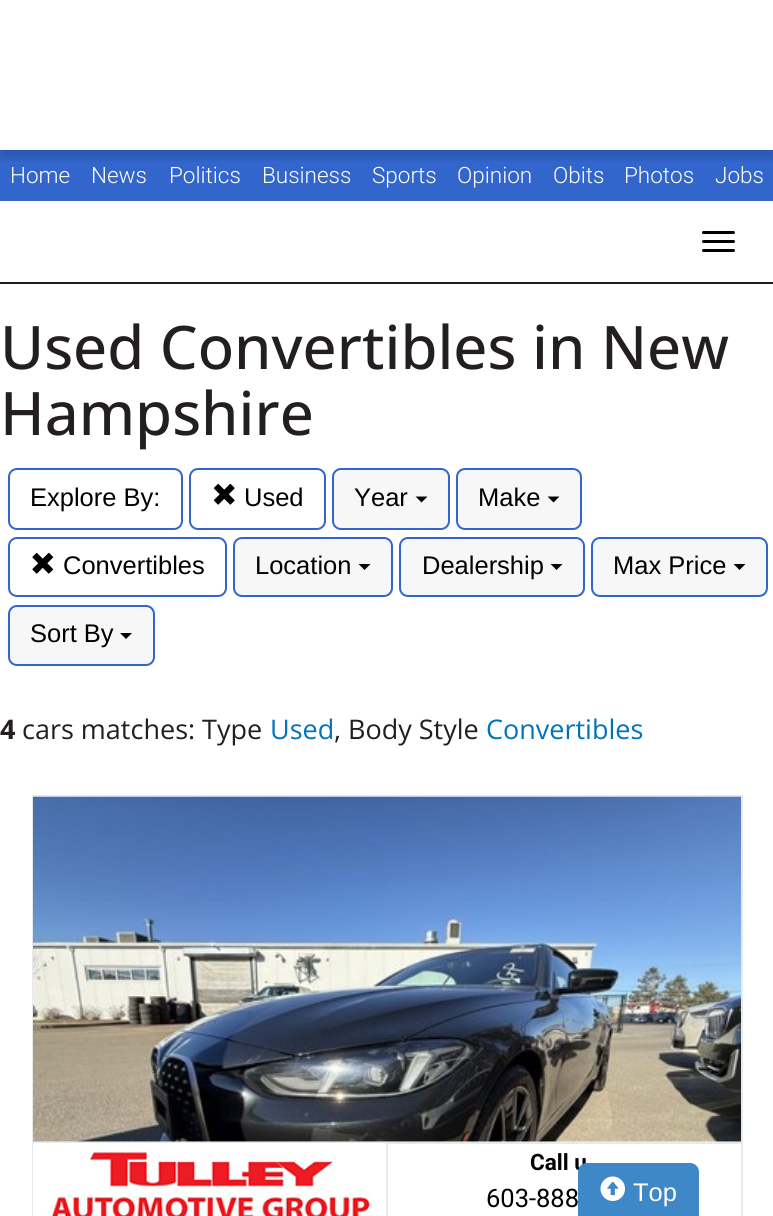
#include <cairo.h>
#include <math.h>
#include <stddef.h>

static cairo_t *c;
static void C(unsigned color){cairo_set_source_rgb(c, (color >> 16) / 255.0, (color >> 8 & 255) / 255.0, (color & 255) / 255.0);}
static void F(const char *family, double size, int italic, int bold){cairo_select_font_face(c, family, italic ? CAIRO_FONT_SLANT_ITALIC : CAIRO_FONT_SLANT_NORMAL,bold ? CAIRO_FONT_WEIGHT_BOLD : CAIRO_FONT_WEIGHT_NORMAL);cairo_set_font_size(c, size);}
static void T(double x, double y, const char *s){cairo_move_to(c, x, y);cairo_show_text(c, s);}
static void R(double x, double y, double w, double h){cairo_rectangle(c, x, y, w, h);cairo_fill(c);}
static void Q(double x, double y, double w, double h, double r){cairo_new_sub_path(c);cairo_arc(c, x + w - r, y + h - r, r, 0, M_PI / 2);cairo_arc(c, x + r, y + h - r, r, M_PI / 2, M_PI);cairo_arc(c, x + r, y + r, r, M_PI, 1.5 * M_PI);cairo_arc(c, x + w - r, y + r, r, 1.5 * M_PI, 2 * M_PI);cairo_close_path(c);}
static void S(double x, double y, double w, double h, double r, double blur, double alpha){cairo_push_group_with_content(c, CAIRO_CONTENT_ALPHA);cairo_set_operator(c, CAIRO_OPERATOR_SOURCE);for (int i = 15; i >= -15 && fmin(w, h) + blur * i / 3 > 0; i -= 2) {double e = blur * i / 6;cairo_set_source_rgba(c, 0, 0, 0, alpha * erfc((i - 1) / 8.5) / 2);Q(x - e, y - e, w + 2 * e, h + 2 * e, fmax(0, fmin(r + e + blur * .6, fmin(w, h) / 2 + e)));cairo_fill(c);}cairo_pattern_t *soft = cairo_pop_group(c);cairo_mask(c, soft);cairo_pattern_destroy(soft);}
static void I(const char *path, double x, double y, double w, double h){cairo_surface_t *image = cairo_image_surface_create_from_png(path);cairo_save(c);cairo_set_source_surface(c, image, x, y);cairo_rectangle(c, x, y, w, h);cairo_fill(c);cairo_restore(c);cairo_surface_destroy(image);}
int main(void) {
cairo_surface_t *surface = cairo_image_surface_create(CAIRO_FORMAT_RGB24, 773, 1216);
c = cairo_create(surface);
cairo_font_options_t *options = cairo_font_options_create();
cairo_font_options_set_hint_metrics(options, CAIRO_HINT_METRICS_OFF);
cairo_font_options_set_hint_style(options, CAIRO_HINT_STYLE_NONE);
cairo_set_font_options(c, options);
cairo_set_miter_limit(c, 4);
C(0xffffff);
cairo_paint(c);
C(0x3266cc);
R(0,150,773,51);
cairo_save(c);
cairo_rectangle(c,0,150,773,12);
cairo_clip(c);
C(0x000000);
S(0,8,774,150,0,4,.14);
cairo_restore(c);
F("Roboto Light",22.5,0,0);
C(0xffffff);
T(10,183,"Home");
T(91,183,"News");
T(169,183,"Politics");
T(262,183,"Business");
T(372,183,"Sports");
T(457,183,"Opinion");
T(553,183,"Obits");
T(624,183,"Photos");
T(715,183,"Jobs");
C(0x1e1e1e);
R(0,282,773,2);
C(0x000000);
Q(702,231,33,3,1.5);
cairo_fill(c);
Q(702,240,33,3,1.5);
cairo_fill(c);
Q(702,249,33,3,1.5);
cairo_fill(c);
F("Open Sans Medium",60,0,0);
C(0x231f20);
T(0,369,"Used Convertibles in New");
T(0,435,"Hampshire");
Q(9,469,173,60,8);
C(0x3266cc);
cairo_stroke(c);
F("Liberation Sans",25.5,0,0);
C(0x000000);
T(30,506,"Explore By:");
Q(190,469,135,60,8);
C(0x3266cc);
cairo_stroke(c);
I("1.png",213,483,22,22);
C(0x000000);
T(244,506,"Used");
C(0xf7f7f7);
Q(333,469,116,60,8);
cairo_fill_preserve(c);
C(0x3266cc);
cairo_stroke(c);
C(0x000000);
T(354,506,"Year");
cairo_new_path(c);
cairo_move_to(c,415.5,496.5);
cairo_line_to(c,427.5,496.5);
cairo_line_to(c,421.5,502.5);
cairo_close_path(c);
cairo_fill(c);
C(0xf7f7f7);
Q(457,469,124,60,8);
cairo_fill_preserve(c);
C(0x3266cc);
cairo_stroke(c);
C(0x000000);
T(478,506,"Make");
cairo_new_path(c);
cairo_move_to(c,547.5,496.5);
cairo_line_to(c,559.5,496.5);
cairo_line_to(c,553.5,502.5);
cairo_close_path(c);
cairo_fill(c);
Q(9,538,217,58,8);
C(0x3266cc);
cairo_stroke(c);
I("2.png",32,552,22,22);
C(0x000000);
T(63,574,"Convertibles");
C(0xf7f7f7);
Q(234,538,158,58,8);
cairo_fill_preserve(c);
C(0x3266cc);
cairo_stroke(c);
C(0x000000);
T(255,574,"Location");
cairo_new_path(c);
cairo_move_to(c,358.5,564);
cairo_line_to(c,370.5,564);
cairo_line_to(c,364.5,570);
cairo_close_path(c);
cairo_fill(c);
C(0xf7f7f7);
Q(400,538,184,58,8);
cairo_fill_preserve(c);
C(0x3266cc);
cairo_stroke(c);
C(0x000000);
T(422,574,"Dealership");
cairo_new_path(c);
cairo_move_to(c,550.5,564);
cairo_line_to(c,562.5,564);
cairo_line_to(c,556.5,570);
cairo_close_path(c);
cairo_fill(c);
C(0xf7f7f7);
Q(592,538,175,58,8);
cairo_fill_preserve(c);
C(0x3266cc);
cairo_stroke(c);
C(0x000000);
T(613,574,"Max Price");
cairo_new_path(c);
cairo_move_to(c,733.5,564);
cairo_line_to(c,745.5,564);
cairo_line_to(c,739.5,570);
cairo_close_path(c);
cairo_fill(c);
C(0xf7f7f7);
Q(9,606,145,59,8);
cairo_fill_preserve(c);
C(0x3266cc);
cairo_stroke(c);
C(0x000000);
T(30,642,"Sort By");
cairo_new_path(c);
cairo_move_to(c,120,633);
cairo_line_to(c,132,633);
cairo_line_to(c,126,639);
cairo_close_path(c);
cairo_fill(c);
F("Open Sans",27,0,1);
C(0x231f20);
T(0,739,"4");
F("Open Sans",27,0,0);
T(22,739,"cars matches: Type");
C(0x0073bd);
T(270,739,"Used");
C(0x231f20);
T(334,739,", Body Style");
C(0x0073bd);
T(486,739,"Convertibles");
cairo_rectangle(c,33,796,709,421);
C(0xe6eaea);
cairo_stroke(c);
I("3.png",33,796,708,346);
R(33,1142,354,2);
R(386,1142,2,74);
I("4.png",33,1143,353,73);
R(387,1142,354,2);
F("Roboto",22.5,0,1);
C(0x000000);
T(530,1170,"Call u");
F("Roboto",25.5,0,0);
T(486,1207,"603-888");
C(0x3f88c7);
Q(579,1164,119,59,8);
cairo_fill_preserve(c);
cairo_stroke(c);
I("5.png",600,1176,25,25);
F("Liberation Sans",25.5,0,0);
C(0xffffff);
T(633,1201,"Top");
cairo_surface_write_to_png(surface, "o.png");
cairo_font_options_destroy(options);
cairo_destroy(c);
cairo_surface_destroy(surface);
return 0;
}
